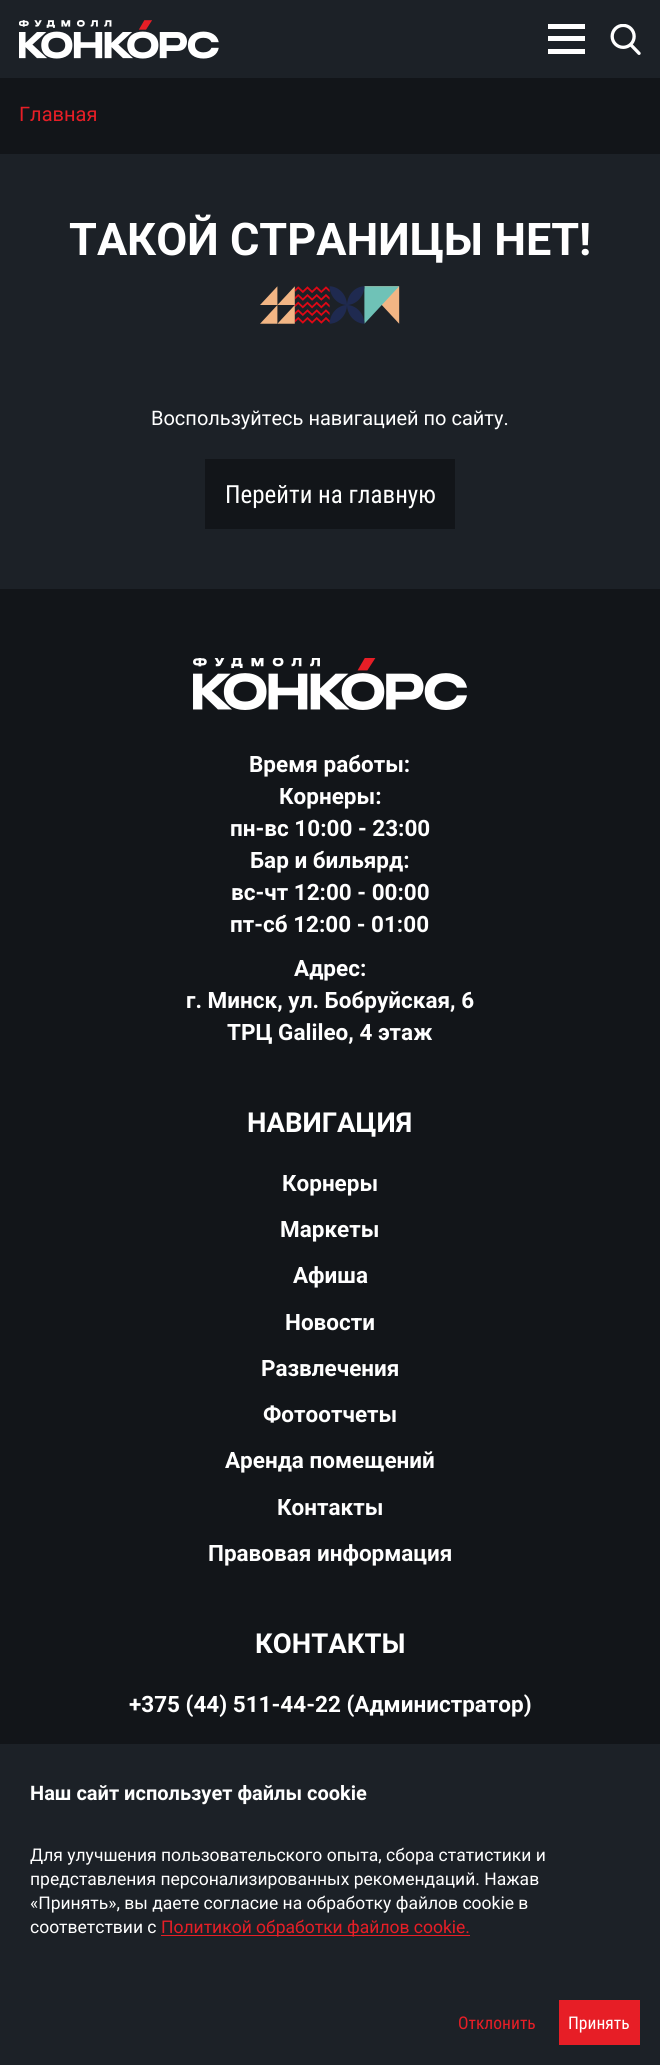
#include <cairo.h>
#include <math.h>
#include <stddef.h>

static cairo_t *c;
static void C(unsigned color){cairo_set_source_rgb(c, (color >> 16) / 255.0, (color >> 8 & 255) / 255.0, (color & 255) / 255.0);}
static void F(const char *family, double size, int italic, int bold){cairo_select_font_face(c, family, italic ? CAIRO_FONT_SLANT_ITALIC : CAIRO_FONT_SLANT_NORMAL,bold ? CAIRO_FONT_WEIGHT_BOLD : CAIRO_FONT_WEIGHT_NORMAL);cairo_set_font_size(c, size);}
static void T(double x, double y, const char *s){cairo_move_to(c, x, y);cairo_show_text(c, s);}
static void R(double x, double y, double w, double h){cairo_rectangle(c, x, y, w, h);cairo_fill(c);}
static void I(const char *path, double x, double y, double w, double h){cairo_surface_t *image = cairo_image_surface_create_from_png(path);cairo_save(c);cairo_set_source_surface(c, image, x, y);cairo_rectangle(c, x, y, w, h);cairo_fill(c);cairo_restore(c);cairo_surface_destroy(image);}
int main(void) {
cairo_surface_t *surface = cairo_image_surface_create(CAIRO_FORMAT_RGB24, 660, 2065);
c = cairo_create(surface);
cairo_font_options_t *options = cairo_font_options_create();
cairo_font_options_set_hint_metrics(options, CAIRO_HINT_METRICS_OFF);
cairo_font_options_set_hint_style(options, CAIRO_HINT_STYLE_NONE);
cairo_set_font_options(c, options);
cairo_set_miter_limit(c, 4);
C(0x1c2127);
cairo_paint(c);
I("1.png",19,20,200,39);
C(0xffffff);
R(548,24,37,5);
R(548,36,37,5);
R(548,49,37,5);
I("2.png",610,24,31,31);
C(0x121519);
R(0,78,660,76);
F("Roboto",20,0,0);
C(0xe71e26);
T(19,121,"Главная");
I("3.png",260,286,140,38);
F("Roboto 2",45,0,1);
C(0xffffff);
T(69,255,"ТАКОЙ СТРАНИЦЫ НЕТ!");
F("Roboto",20,0,0);
T(151,425,"Воспользуйтесь навигацией по сайту.");
C(0x121519);
R(205,459,250,70);
F("Roboto Condensed",25,0,0);
C(0xffffff);
T(225,503,"Перейти на главную");
C(0x121519);
R(0,589,660,1155);
I("4.png",193,658,274,52);
F("Roboto",22.5,0,1);
C(0xffffff);
T(249,772,"Время работы:");
T(279,804,"Корнеры:");
T(230,836,"пн-вс 10:00 - 23:00");
T(250,868,"Бар и бильярд:");
T(231,900,"вс-чт 12:00 - 00:00");
T(230,932,"пт-сб 12:00 - 01:00");
T(294,976,"Адрес:");
T(186,1008,"г. Минск, ул. Бобруйская, 6");
T(227,1040,"ТРЦ Galileo, 4 этаж");
F("Roboto",27.5,0,1);
T(247,1132,"НАВИГАЦИЯ");
F("Roboto 2",22.5,0,1);
T(282,1191,"Корнеры");
T(280,1237,"Маркеты");
T(293,1283,"Афиша");
T(285,1330,"Новости");
T(261,1376,"Развлечения");
T(263,1422,"Фотоотчеты");
T(225,1468,"Аренда помещений");
T(277,1515,"Контакты");
T(208,1561,"Правовая информация");
F("Roboto",27.5,0,1);
T(255,1653,"КОНТАКТЫ");
F("Roboto 2",22.5,0,1);
T(129,1712,"+375 (44) 511-44-22 (Администратор)");
F("Roboto",20,0,1);
T(30,1800,"Наш сайт использует файлы cookie");
F("Roboto",17.5,0,0);
T(30,1861,"Для улучшения пользовательского опыта, сбора статистики и");
T(30,1885,"представления персонализированных рекомендаций. Нажав");
T(30,1909,"«Принять», вы даете согласие на обработку файлов cookie в");
T(30,1933,"соответствии с");
C(0xe71f26);
R(161,1935,309,1);
C(0xe71e26);
T(161,1933,"Политикой обработки файлов cookie.");
F("Roboto Condensed",17.5,0,0);
T(458,2029,"Отклонить");
R(559,2000,81,45);
C(0xffffff);
T(568,2029,"Принять");
cairo_surface_write_to_png(surface, "o.png");
cairo_font_options_destroy(options);
cairo_destroy(c);
cairo_surface_destroy(surface);
return 0;
}
